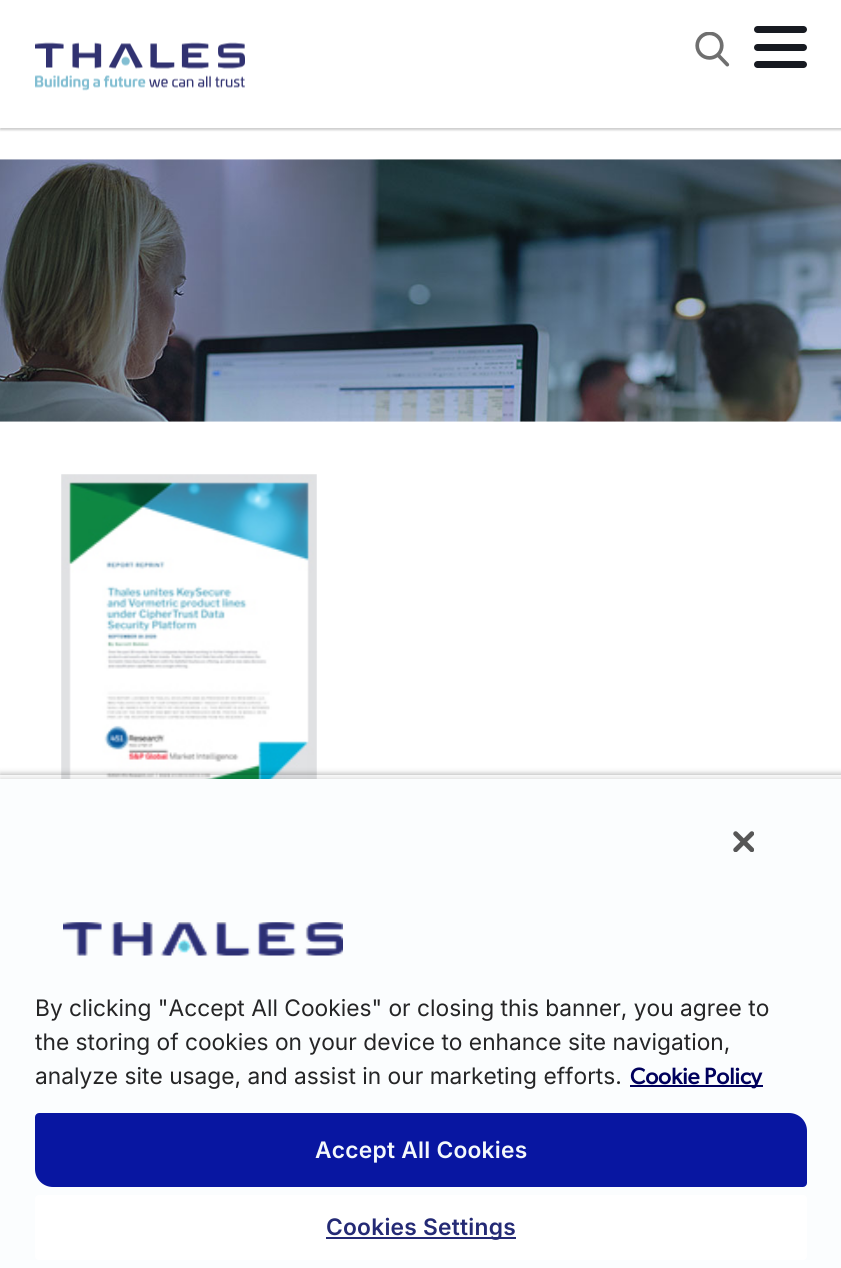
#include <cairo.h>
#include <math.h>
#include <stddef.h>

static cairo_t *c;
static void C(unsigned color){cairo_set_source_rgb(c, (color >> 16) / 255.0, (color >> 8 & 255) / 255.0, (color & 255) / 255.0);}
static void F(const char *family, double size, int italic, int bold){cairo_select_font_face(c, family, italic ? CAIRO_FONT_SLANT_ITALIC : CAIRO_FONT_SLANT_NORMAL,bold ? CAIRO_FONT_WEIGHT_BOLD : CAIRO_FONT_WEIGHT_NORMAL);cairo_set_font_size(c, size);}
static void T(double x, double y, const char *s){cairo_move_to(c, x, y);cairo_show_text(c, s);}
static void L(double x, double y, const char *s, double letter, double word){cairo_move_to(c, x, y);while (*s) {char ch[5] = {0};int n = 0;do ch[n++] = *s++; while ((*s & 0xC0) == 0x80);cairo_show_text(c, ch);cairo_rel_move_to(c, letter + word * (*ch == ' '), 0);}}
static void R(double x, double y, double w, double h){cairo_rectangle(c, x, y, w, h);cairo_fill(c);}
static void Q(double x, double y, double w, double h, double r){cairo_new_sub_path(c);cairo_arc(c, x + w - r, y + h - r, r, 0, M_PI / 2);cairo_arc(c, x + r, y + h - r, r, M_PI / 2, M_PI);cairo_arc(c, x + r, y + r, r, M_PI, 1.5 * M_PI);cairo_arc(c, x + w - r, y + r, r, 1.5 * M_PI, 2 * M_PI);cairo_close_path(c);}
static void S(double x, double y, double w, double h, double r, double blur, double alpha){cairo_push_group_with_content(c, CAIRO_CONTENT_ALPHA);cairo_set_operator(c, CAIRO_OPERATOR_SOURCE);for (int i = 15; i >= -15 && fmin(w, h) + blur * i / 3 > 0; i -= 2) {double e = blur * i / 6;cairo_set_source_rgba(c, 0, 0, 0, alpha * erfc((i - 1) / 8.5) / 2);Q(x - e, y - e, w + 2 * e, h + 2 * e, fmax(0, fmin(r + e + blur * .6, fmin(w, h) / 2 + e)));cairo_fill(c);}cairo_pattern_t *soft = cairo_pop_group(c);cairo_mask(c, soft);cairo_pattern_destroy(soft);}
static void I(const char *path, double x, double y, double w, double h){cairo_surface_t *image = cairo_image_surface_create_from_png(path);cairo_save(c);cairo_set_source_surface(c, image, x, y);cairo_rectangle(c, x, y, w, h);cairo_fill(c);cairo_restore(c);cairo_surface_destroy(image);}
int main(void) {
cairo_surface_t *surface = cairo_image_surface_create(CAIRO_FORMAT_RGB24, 841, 1268);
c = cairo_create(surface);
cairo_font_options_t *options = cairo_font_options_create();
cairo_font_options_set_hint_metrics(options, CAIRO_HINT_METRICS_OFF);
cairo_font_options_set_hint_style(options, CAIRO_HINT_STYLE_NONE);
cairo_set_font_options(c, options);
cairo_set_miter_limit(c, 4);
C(0xffffff);
cairo_paint(c);
C(0x000000);
S(0,2,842,128,0,1,.2);
C(0xffffff);
R(0,0,841,128);
I("1.png",35,42,210,49);
I("2.png",695,32,35,35);
C(0x171a21);
Q(754,26,53,7,3.5);
cairo_fill(c);
Q(754,44,53,7,3.5);
cairo_fill(c);
Q(754,61,53,7,3.5);
cairo_fill(c);
I("3.png",0,159,841,263);
I("4.png",61,474,256,305);
cairo_save(c);
cairo_set_fill_rule(c,CAIRO_FILL_RULE_EVEN_ODD);
cairo_new_path(c);
cairo_move_to(c,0,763);
cairo_line_to(c,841,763);
cairo_line_to(c,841,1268);
cairo_line_to(c,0,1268);
cairo_close_path(c);
cairo_move_to(c,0,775);
cairo_line_to(c,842,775);
cairo_line_to(c,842,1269);
cairo_line_to(c,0,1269);
cairo_close_path(c);
cairo_clip(c);
C(0x000000);
S(0,775,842,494,0,3.5,.35);
cairo_restore(c);
C(0x000000);
S(0,779,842,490,0,3.5,.2);
C(0xfbfdfe);
R(0,779,841,489);
I("5.png",733,831,21,21);
I("6.png",63,922,280,34);
F("Inter",22.75,0,0);
C(0x252526);
T(35,1016,"By clicking \"Accept All Cookies\" or closing this banner, you agree to");
T(35,1050,"the storing of cookies on your device to enhance site navigation,");
T(35,1084,"analyze site usage, and assist in our marketing efforts.");
C(0x00005c);
R(630,1085,133,2);
F("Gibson",22.75,0,1);
T(630,1084,"Cookie Policy");
C(0x0816a1);
cairo_new_path(c);
cairo_move_to(c,39,1114);
cairo_line_to(c,789,1114);
cairo_curve_to(c,798.5,1114,806,1121.5,806,1131);
cairo_line_to(c,806,1183);
cairo_curve_to(c,806,1184.5,804.5,1186,803,1186);
cairo_line_to(c,53,1186);
cairo_curve_to(c,43.5,1186,36,1178.5,36,1169);
cairo_line_to(c,36,1117);
cairo_curve_to(c,36,1115.5,37.5,1114,39,1114);
cairo_close_path(c);
cairo_fill_preserve(c);
cairo_stroke(c);
F("Inter SemiBold",22.75,0,0);
C(0xf4f9fb);
L(315,1158,"Accept All Cookies",.25,0);
C(0xffffff);
Q(35,1195,772,65,4);
cairo_fill(c);
C(0x242a75);
R(326,1237,190,2);
L(326,1235,"Cookies Settings",.25,0);
cairo_surface_write_to_png(surface, "o.png");
cairo_font_options_destroy(options);
cairo_destroy(c);
cairo_surface_destroy(surface);
return 0;
}
